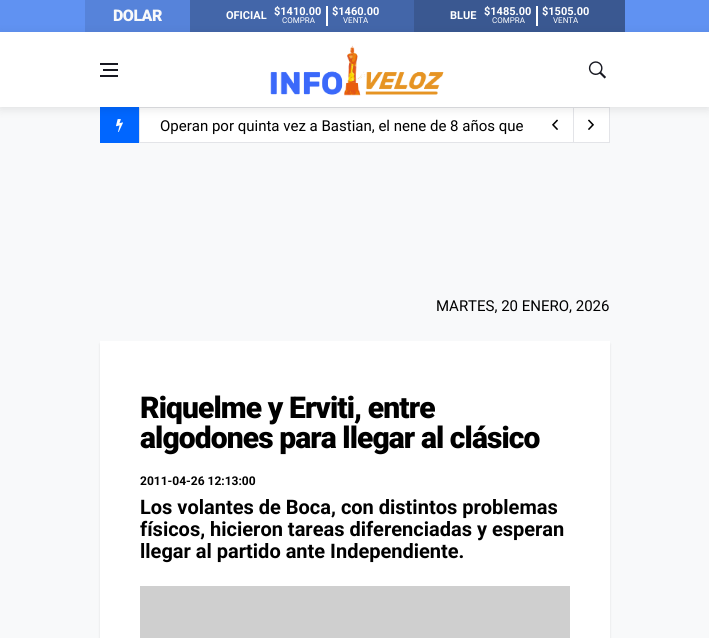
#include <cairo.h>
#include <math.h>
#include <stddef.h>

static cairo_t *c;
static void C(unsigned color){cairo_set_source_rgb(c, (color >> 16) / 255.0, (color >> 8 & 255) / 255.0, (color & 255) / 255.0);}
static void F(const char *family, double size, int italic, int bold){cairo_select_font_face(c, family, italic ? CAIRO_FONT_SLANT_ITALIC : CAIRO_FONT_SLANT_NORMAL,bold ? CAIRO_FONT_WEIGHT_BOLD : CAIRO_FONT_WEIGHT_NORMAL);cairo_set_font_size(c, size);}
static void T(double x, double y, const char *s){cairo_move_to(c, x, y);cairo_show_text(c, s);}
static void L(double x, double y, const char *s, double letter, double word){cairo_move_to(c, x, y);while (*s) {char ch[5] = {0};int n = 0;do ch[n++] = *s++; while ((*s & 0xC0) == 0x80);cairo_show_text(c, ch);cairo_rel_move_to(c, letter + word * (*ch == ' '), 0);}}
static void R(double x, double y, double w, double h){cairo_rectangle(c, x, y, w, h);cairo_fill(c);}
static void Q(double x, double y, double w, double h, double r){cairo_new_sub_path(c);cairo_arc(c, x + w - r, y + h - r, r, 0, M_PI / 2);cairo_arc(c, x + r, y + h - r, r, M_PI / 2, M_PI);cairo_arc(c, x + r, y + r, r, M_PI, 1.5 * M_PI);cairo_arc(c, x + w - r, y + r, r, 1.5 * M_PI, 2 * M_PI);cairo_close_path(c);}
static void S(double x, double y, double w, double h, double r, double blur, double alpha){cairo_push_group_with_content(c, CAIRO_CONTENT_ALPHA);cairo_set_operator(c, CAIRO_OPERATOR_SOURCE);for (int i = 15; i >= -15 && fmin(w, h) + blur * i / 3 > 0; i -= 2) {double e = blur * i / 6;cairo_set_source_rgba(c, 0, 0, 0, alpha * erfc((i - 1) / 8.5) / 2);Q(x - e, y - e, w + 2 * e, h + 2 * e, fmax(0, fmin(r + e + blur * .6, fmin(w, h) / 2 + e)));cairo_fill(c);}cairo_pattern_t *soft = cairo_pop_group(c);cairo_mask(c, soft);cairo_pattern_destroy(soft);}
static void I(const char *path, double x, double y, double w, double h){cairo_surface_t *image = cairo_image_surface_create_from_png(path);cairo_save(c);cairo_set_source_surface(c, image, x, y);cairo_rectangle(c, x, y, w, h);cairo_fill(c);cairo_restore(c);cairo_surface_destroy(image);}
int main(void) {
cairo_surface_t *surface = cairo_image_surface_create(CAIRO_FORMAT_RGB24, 709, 638);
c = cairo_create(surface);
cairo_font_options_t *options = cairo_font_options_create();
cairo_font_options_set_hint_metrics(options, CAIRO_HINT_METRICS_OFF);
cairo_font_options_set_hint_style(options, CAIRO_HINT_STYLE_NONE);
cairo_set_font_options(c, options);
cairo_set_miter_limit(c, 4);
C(0xf8f9fa);
cairo_paint(c);
C(0x6092f2);
R(0,0,709,32);
C(0x5683da);
R(85,0,105,32);
F("Roboto Black",16,0,0);
C(0xf8f9fa);
L(113,21,"DOLAR",-.5,0);
C(0x4366a9);
R(190,0,224,32);
F("Roboto",11,0,1);
C(0xffffff);
T(226,19,"OFICIAL");
T(274,15,"$1410.00");
F("Roboto",8,0,0);
T(282,23,"COMPRA");
R(326,6,2,20);
F("Roboto",11,0,1);
T(332,15,"$1460.00");
F("Roboto",8,0,0);
T(343,23,"VENTA");
C(0x3a5891);
R(414,0,211,32);
F("Roboto",11,0,1);
C(0xffffff);
T(450,19,"BLUE");
T(484,15,"$1485.00");
F("Roboto",8,0,0);
T(492,23,"COMPRA");
R(536,6,2,20);
F("Roboto",11,0,1);
T(542,15,"$1505.00");
F("Roboto",8,0,0);
T(553,23,"VENTA");
C(0x0066ff);
R(100,107,39,36);
I("3.png",116,119,7,13);
C(0xffffff);
cairo_rectangle(c,139.5,107.5,470,35);
cairo_fill_preserve(c);
C(0xe3e4e8);
cairo_set_line_width(c,1);
cairo_stroke(c);
R(573,107,1,36);
I("4.png",552,119,6,11);
I("5.png",588,119,6,11);
C(0x000000);
S(0,34,709,75,0,5,.1);
C(0xffffff);
R(0,32,709,75);
C(0x171821);
R(103,69,15,2);
R(100,63,18,2);
R(100,75,18,2);
I("1.png",270,44,174,52);
I("2.png",588,61,18,18);
F("Roboto",15,0,0);
C(0x000000);
T(160,131,"Operan por quinta vez a Bastian, el nene de 8 años que");
T(436,311,"MARTES, 20 ENERO, 2026");
C(0x000000);
S(100,344,510,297,0,1,.1);
C(0xffffff);
R(100,341,510,297);
F("Roboto Black",30,0,0);
C(0x000000);
L(140,418,"Riquelme y Erviti, entre",-.9,0);
L(140,448,"algodones para llegar al clásico",-.9,0);
F("Roboto",12,0,1);
T(140,485,"2011-04-26 12:13:00");
F("Roboto",20,0,1);
T(140,514,"Los volantes de Boca, con distintos problemas");
T(140,536,"físicos, hicieron tareas diferenciadas y esperan");
T(140,558,"llegar al partido ante Independiente.");
C(0xcfcfcf);
R(140,586,430,52);
cairo_surface_write_to_png(surface, "o.png");
cairo_font_options_destroy(options);
cairo_destroy(c);
cairo_surface_destroy(surface);
return 0;
}
